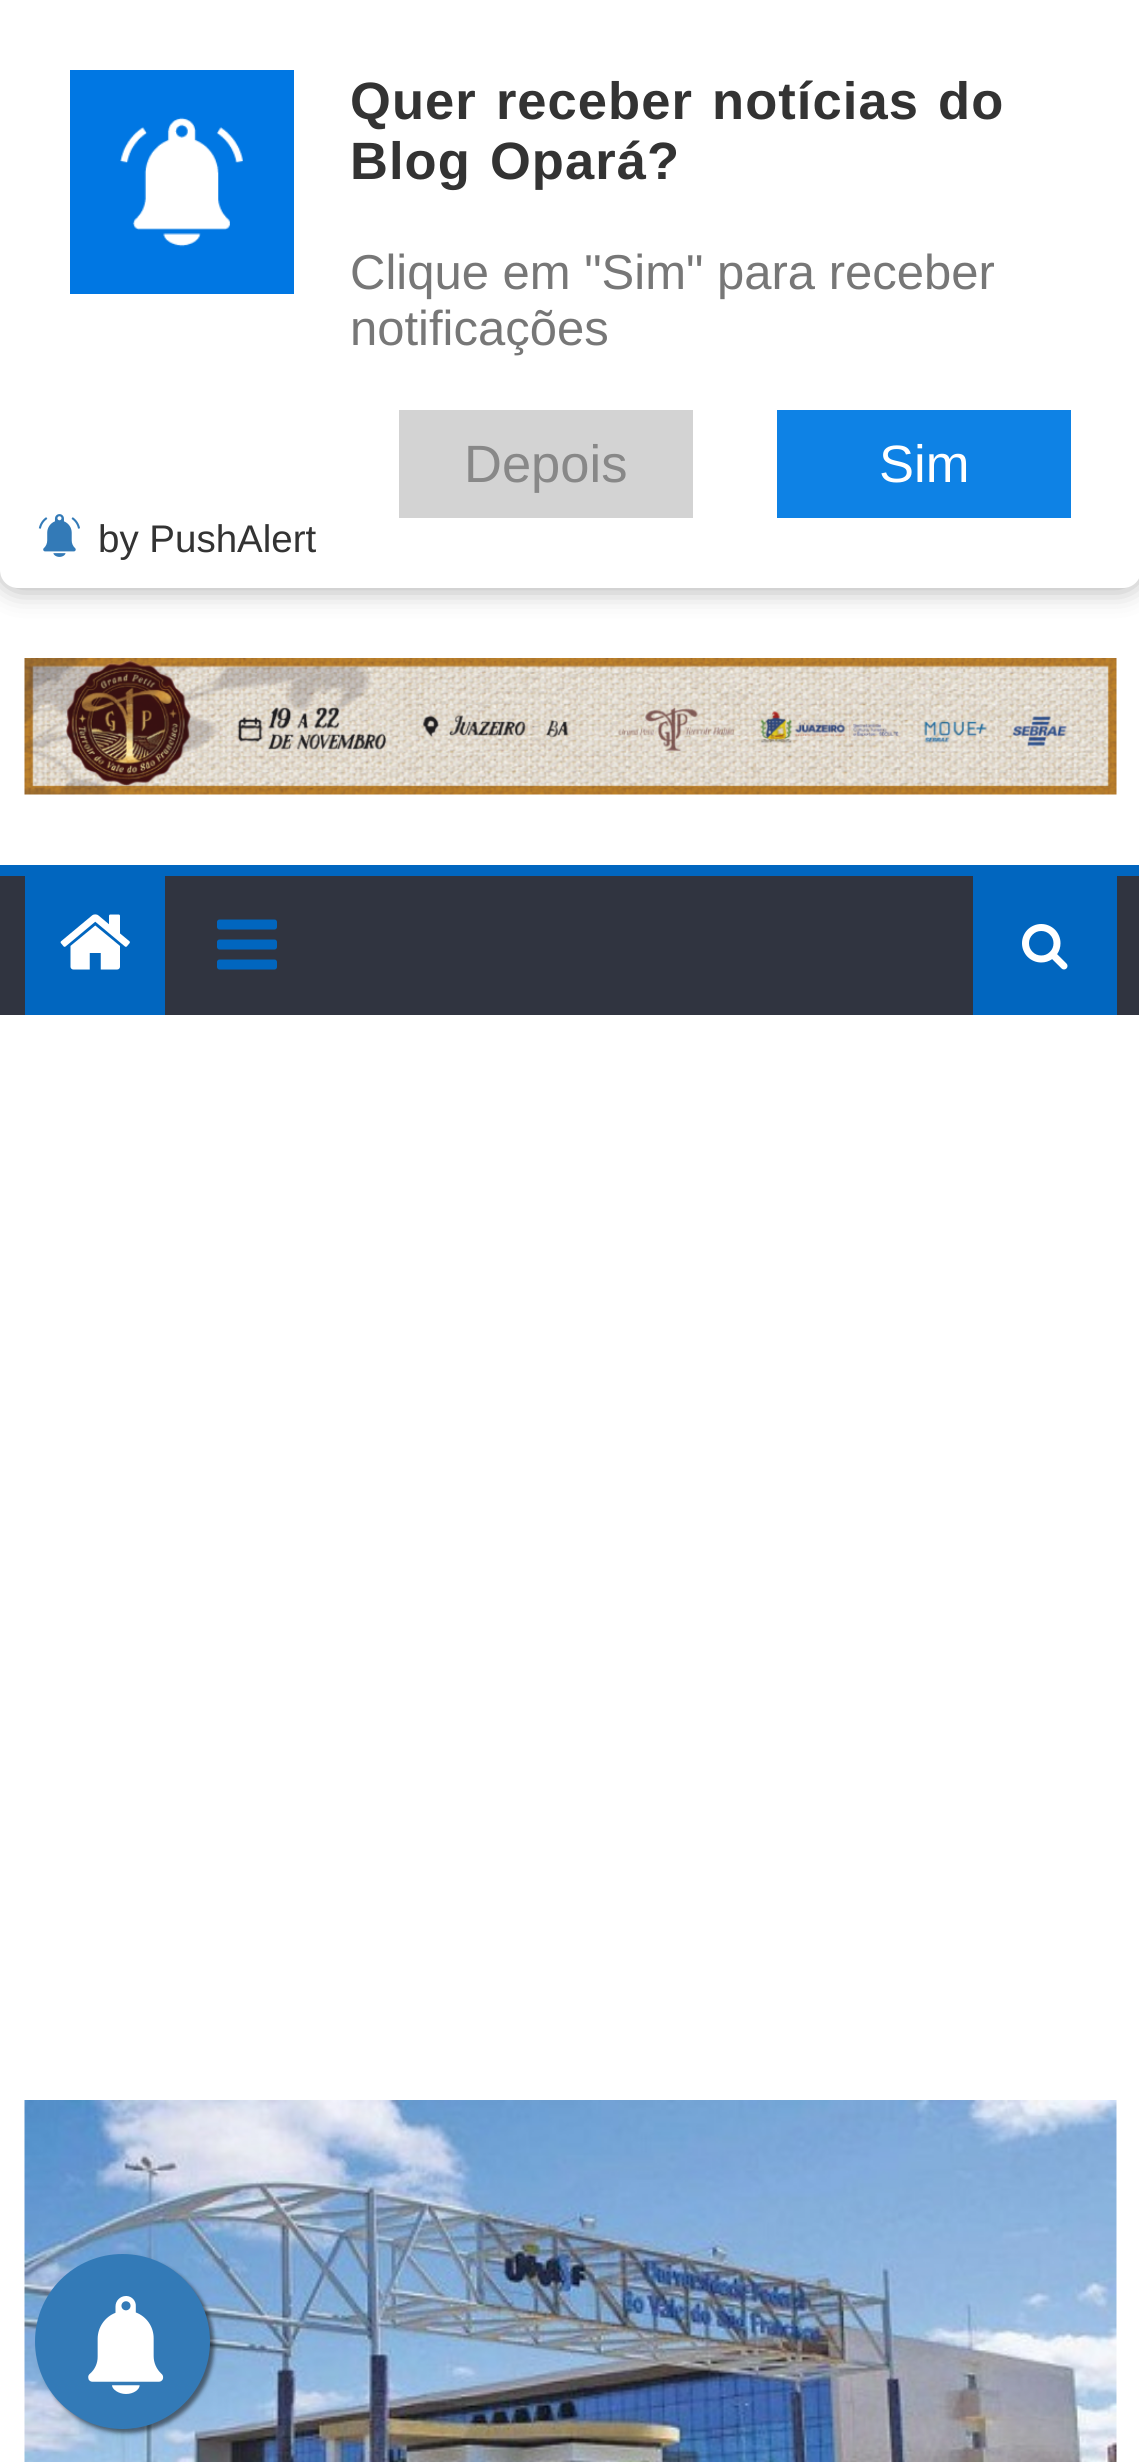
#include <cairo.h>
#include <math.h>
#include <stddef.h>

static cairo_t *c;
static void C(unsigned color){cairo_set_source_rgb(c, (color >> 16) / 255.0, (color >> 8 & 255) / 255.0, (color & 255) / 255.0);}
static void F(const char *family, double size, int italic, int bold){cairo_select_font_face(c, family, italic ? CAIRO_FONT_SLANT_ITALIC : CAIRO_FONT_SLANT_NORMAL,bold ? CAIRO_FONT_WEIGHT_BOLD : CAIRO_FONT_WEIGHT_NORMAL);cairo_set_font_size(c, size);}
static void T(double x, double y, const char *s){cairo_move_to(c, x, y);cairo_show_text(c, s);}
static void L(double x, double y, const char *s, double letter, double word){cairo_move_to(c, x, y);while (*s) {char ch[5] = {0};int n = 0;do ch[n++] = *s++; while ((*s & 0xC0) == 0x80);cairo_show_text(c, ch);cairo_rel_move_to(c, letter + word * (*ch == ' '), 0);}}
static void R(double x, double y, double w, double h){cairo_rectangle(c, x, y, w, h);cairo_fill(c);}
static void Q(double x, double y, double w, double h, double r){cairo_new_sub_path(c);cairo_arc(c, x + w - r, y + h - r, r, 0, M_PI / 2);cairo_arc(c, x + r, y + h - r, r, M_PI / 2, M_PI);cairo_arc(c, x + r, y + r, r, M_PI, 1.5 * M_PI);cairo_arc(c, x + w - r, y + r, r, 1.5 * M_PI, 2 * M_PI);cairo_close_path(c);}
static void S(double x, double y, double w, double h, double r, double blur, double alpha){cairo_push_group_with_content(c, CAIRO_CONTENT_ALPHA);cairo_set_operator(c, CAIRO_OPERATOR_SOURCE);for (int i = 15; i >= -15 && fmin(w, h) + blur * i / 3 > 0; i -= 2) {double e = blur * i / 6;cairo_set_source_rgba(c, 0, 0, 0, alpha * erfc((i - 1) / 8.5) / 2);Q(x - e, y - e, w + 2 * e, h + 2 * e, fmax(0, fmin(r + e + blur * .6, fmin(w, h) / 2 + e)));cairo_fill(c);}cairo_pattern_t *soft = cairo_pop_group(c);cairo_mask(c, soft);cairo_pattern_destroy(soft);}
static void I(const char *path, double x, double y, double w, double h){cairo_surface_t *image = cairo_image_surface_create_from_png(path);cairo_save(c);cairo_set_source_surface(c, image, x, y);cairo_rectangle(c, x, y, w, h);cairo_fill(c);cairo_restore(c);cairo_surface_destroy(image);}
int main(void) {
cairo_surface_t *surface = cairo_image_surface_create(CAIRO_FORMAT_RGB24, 1139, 2462);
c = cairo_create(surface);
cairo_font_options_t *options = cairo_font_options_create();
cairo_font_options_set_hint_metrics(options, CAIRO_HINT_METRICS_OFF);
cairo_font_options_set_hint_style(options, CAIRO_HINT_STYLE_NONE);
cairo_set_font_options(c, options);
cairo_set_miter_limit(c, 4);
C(0xffffff);
cairo_paint(c);
C(0x000000);
S(0,0,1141,588,18,14,.35);
C(0xffffff);
cairo_new_path(c);
cairo_move_to(c,0,0);
cairo_line_to(c,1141,0);
cairo_line_to(c,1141,570);
cairo_curve_to(c,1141,580,1133,588,1123,588);
cairo_line_to(c,18,588);
cairo_curve_to(c,8,588,0,580,0,570);
cairo_close_path(c);
cairo_fill(c);
I("1.png",70,70,224,224);
F("Liberation Sans",52.5,0,1);
C(0x333333);
L(350,119,"Quer receber notícias do",1.05,3.5);
L(350,179,"Blog Opará?",1.05,3.5);
F("Liberation Sans",49,0,0);
C(0x777777);
T(350,289,"Clique em \"Sim\" para receber");
T(350,345,"notificações");
C(0xd3d3d3);
R(399,410,294,108);
F("Liberation Sans",52.5,0,0);
C(0x888888);
T(464,482,"Depois");
C(0x0e82e5);
R(777,410,294,108);
C(0xffffff);
T(879,482,"Sim");
I("2.png",38,514,42,43);
F("Liberation Sans",38.5,0,0);
C(0x333333);
T(98,552,"by PushAlert");
I("3.png",24,658,1093,137);
C(0x303440);
R(0,876,1139,139);
C(0x0166bf);
R(0,865,1139,11);
R(25,876,140,139);
I("4.png",60,914,70,56);
I("5.png",217,919,60,51);
R(973,876,144,139);
I("6.png",1022,924,46,46);
I("7.png",24,2100,1093,362);
C(0x000000);
S(39,2258,175,175,87.5,2,.5);
C(0x337ab7);
cairo_arc(c,122.5,2341.5,87.5,0,2 * M_PI);
cairo_fill(c);
I("8.png",88,2296,76,98);
cairo_surface_write_to_png(surface, "o.png");
cairo_font_options_destroy(options);
cairo_destroy(c);
cairo_surface_destroy(surface);
return 0;
}
